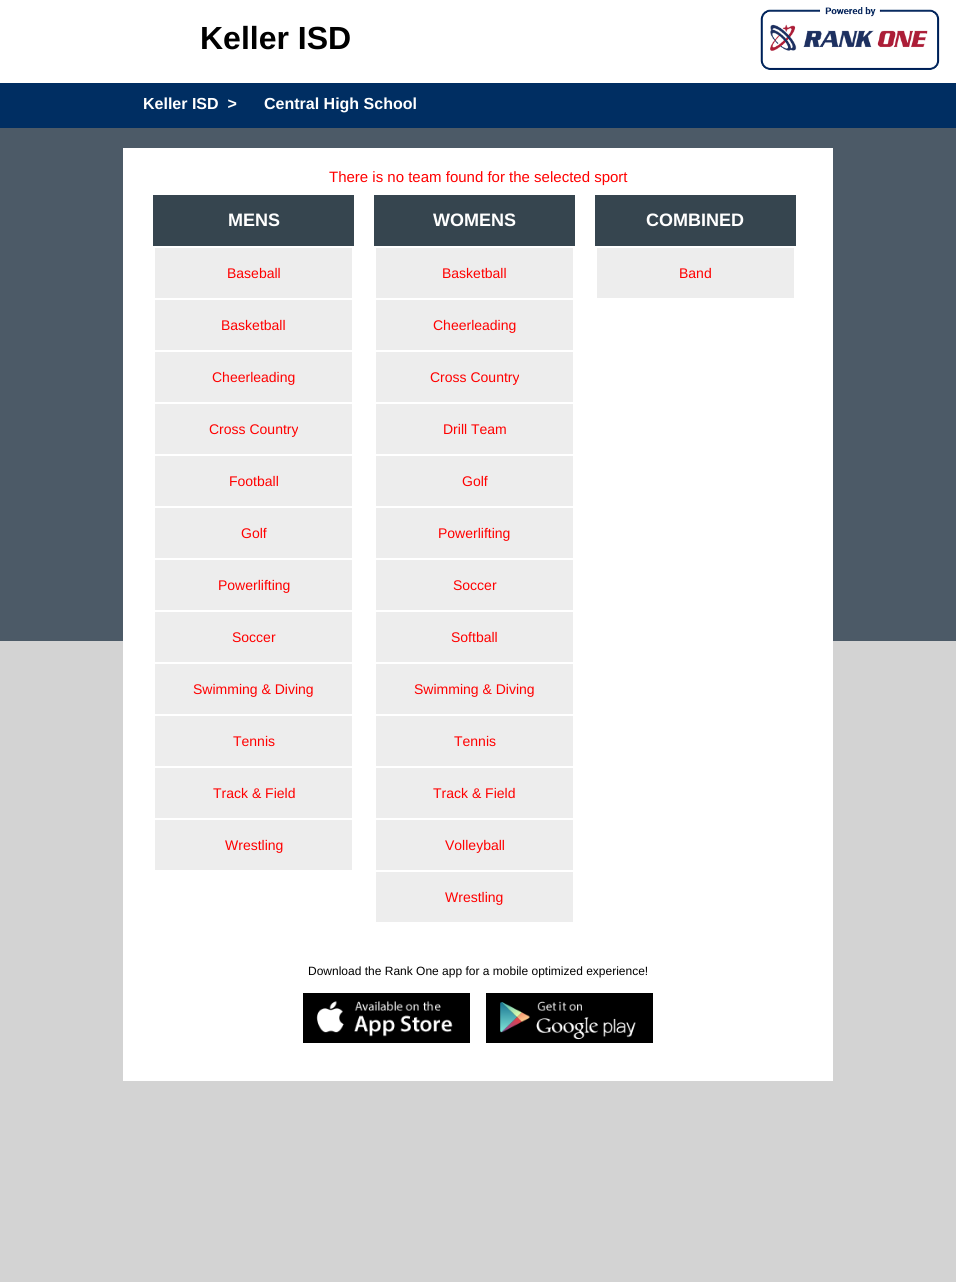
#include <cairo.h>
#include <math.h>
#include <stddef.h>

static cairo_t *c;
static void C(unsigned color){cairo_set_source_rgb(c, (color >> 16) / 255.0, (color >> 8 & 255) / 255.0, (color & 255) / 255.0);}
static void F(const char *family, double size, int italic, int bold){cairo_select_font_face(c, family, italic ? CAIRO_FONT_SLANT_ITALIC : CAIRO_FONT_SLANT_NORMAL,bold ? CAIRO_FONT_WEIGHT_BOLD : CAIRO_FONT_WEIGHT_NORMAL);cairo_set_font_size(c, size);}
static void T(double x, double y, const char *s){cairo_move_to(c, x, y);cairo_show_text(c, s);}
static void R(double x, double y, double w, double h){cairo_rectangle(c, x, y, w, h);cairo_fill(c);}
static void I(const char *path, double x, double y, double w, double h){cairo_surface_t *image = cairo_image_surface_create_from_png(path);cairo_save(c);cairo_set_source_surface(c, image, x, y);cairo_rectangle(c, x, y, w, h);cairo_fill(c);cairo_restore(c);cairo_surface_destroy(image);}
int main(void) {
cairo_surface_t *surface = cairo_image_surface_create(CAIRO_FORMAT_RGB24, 956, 1282);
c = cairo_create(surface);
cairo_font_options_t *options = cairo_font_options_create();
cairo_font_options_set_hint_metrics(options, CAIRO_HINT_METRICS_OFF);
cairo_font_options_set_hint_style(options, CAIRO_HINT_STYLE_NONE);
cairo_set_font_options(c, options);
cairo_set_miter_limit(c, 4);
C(0x4c5a67);
cairo_paint(c);
C(0xd3d3d3);
R(0,641,956,641);
C(0xffffff);
R(0,0,956,83);
F("Liberation Sans",32,0,1);
C(0x000000);
T(200,49,"Keller ISD");
I("1.png",760,7,180,63);
C(0x002e62);
R(0,83,956,45);
F("Liberation Sans",16,0,1);
C(0xffffff);
T(143,109,"Keller ISD  >");
T(264,109,"Central High School");
R(123,148,710,933);
F("Liberation Sans",15,0,0);
C(0xff0000);
T(329,182,"There is no team found for the selected sport");
C(0x36454f);
R(153,195,201,51);
F("Liberation Sans",18,0,1);
C(0xffffff);
T(228,226,"MENS");
C(0xededed);
R(155,248,197,50);
F("Liberation Sans",14,0,0);
C(0xff0000);
T(227,278,"Baseball");
C(0xededed);
R(155,300,197,50);
C(0xff0000);
T(221,330,"Basketball");
C(0xededed);
R(155,352,197,50);
C(0xff0000);
T(212,382,"Cheerleading");
C(0xededed);
R(155,404,197,50);
C(0xff0000);
T(209,434,"Cross Country");
C(0xededed);
R(155,456,197,50);
C(0xff0000);
T(229,486,"Football");
C(0xededed);
R(155,508,197,50);
C(0xff0000);
T(241,538,"Golf");
C(0xededed);
R(155,560,197,50);
C(0xff0000);
T(218,590,"Powerlifting");
C(0xededed);
R(155,612,197,50);
C(0xff0000);
T(232,642,"Soccer");
C(0xededed);
R(155,664,197,50);
C(0xff0000);
T(193,694,"Swimming & Diving");
C(0xededed);
R(155,716,197,50);
C(0xff0000);
T(233,746,"Tennis");
C(0xededed);
R(155,768,197,50);
C(0xff0000);
T(213,798,"Track & Field");
C(0xededed);
R(155,820,197,50);
C(0xff0000);
T(225,850,"Wrestling");
C(0x36454f);
R(374,195,201,51);
F("Liberation Sans",18,0,1);
C(0xffffff);
T(433,226,"WOMENS");
C(0xededed);
R(376,248,197,50);
F("Liberation Sans",14,0,0);
C(0xff0000);
T(442,278,"Basketball");
C(0xededed);
R(376,300,197,50);
C(0xff0000);
T(433,330,"Cheerleading");
C(0xededed);
R(376,352,197,50);
C(0xff0000);
T(430,382,"Cross Country");
C(0xededed);
R(376,404,197,50);
C(0xff0000);
T(443,434,"Drill Team");
C(0xededed);
R(376,456,197,50);
C(0xff0000);
T(462,486,"Golf");
C(0xededed);
R(376,508,197,50);
C(0xff0000);
T(438,538,"Powerlifting");
C(0xededed);
R(376,560,197,50);
C(0xff0000);
T(453,590,"Soccer");
C(0xededed);
R(376,612,197,50);
C(0xff0000);
T(451,642,"Softball");
C(0xededed);
R(376,664,197,50);
C(0xff0000);
T(414,694,"Swimming & Diving");
C(0xededed);
R(376,716,197,50);
C(0xff0000);
T(454,746,"Tennis");
C(0xededed);
R(376,768,197,50);
C(0xff0000);
T(433,798,"Track & Field");
C(0xededed);
R(376,820,197,50);
C(0xff0000);
T(445,850,"Volleyball");
C(0xededed);
R(376,872,197,50);
C(0xff0000);
T(445,902,"Wrestling");
C(0x36454f);
R(595,195,201,51);
F("Liberation Sans",18,0,1);
C(0xffffff);
T(646,226,"COMBINED");
C(0xededed);
R(597,248,197,50);
F("Liberation Sans",14,0,0);
C(0xff0000);
T(679,278,"Band");
F("Liberation Sans",12,0,0);
C(0x000000);
T(308,975,"Download the Rank One app for a mobile optimized experience!");
R(303,993,167,50);
I("2.png",316,1001,137,36);
R(486,993,167,50);
I("3.png",500,1001,136,39);
cairo_surface_write_to_png(surface, "o.png");
cairo_font_options_destroy(options);
cairo_destroy(c);
cairo_surface_destroy(surface);
return 0;
}
